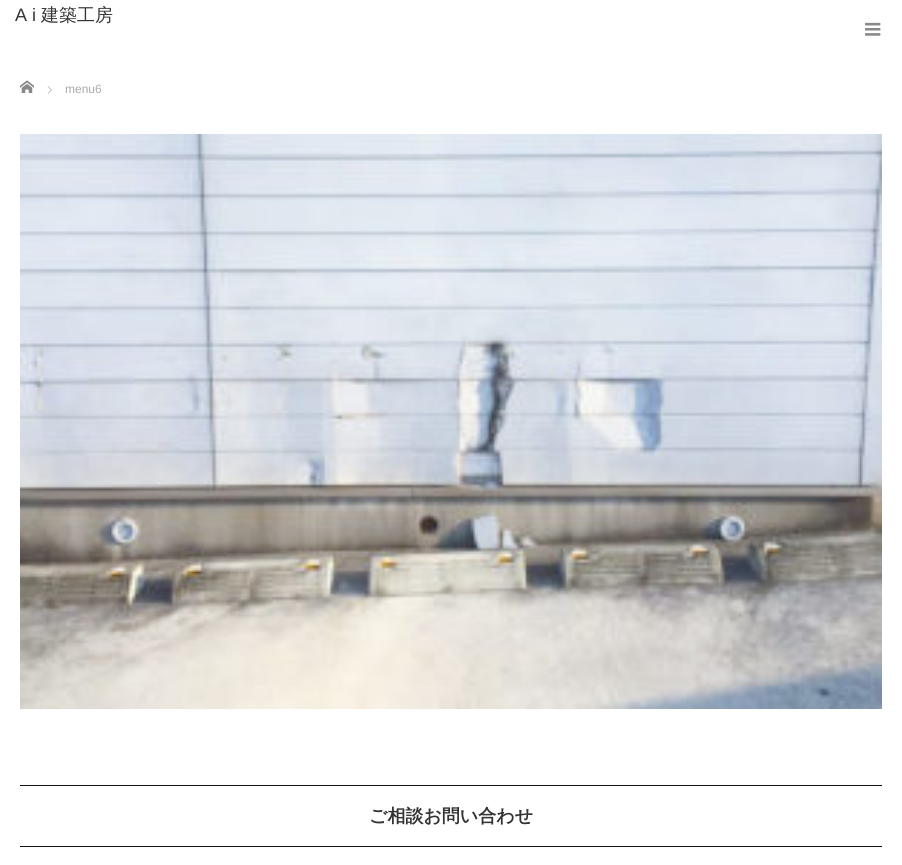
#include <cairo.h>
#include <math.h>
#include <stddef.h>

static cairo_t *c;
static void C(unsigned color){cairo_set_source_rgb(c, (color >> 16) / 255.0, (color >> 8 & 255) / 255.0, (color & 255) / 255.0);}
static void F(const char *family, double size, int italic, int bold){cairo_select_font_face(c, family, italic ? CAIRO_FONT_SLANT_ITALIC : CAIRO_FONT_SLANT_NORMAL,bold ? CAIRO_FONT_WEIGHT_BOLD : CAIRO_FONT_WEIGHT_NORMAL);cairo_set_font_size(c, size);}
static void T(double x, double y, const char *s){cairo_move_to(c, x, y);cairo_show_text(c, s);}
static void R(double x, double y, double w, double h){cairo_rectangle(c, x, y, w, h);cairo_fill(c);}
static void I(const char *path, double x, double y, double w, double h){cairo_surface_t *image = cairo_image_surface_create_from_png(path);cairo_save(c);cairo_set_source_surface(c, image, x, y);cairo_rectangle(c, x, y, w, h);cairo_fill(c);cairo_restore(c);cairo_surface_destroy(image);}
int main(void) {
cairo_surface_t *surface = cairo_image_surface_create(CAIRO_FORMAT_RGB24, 902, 865);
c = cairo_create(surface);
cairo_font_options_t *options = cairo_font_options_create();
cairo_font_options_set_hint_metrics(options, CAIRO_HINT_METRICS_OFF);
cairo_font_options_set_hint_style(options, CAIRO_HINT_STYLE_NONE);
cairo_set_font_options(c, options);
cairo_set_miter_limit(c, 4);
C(0xffffff);
cairo_paint(c);
F("Liberation Sans",18,0,0);
C(0x333333);
T(15,21,"A i");
F("WenQuanYi Zen Hei Medium",18,0,0);
T(41,21,"建築工房");
I("1.png",865,22,16,14);
I("2.png",20,80,14,13);
I("3.png",47,86,5,8);
F("Liberation Sans",12,0,0);
C(0xaaaaaa);
T(65,93,"menu6");
I("4.png",20,134,862,575);
C(0x111111);
R(20,785,862,1);
R(20,846,862,1);
F("WenQuanYi Zen Hei",18,0,1);
C(0x333333);
T(369,822,"ご相談お問い合わせ");
cairo_surface_write_to_png(surface, "o.png");
cairo_font_options_destroy(options);
cairo_destroy(c);
cairo_surface_destroy(surface);
return 0;
}
